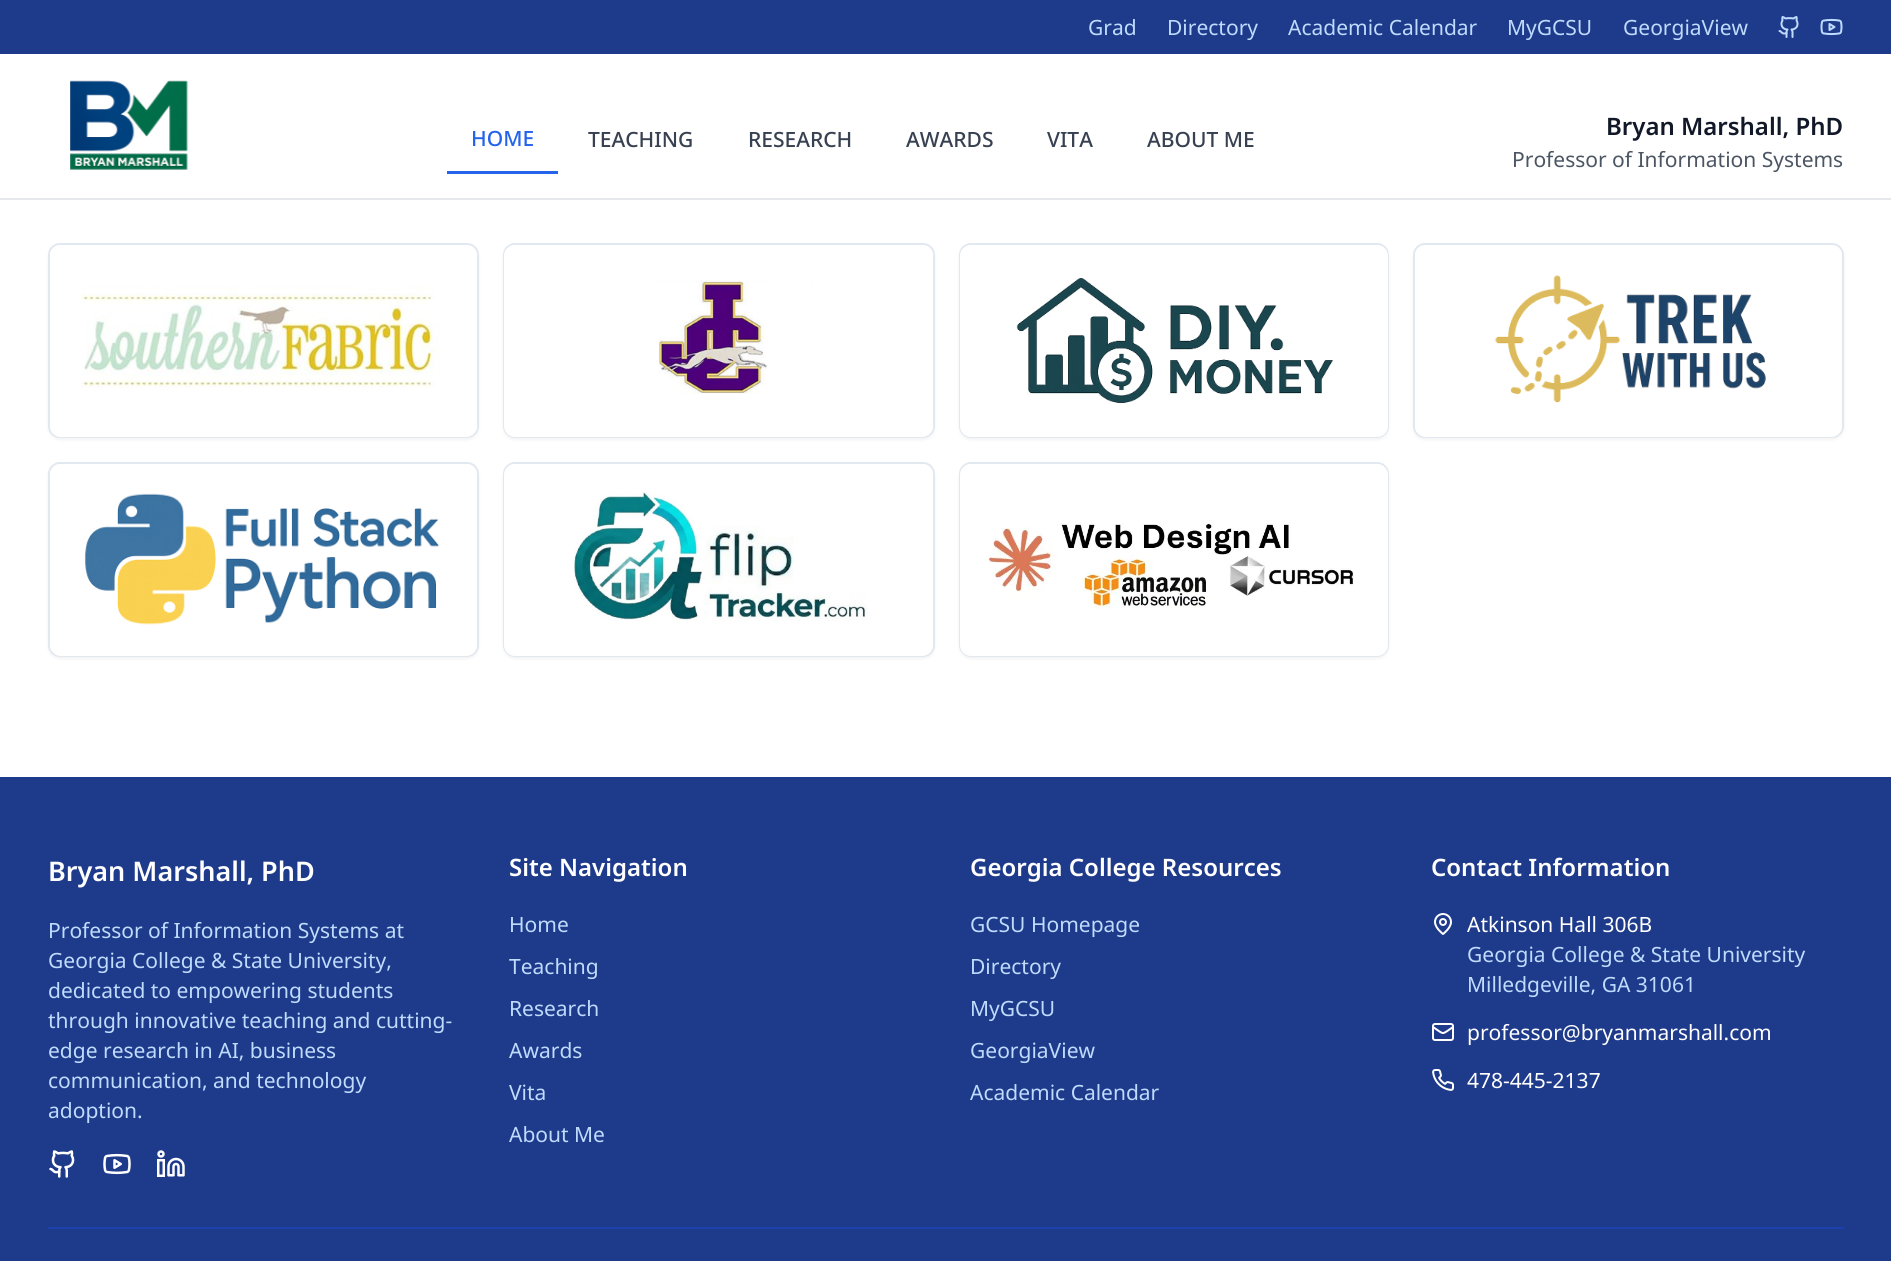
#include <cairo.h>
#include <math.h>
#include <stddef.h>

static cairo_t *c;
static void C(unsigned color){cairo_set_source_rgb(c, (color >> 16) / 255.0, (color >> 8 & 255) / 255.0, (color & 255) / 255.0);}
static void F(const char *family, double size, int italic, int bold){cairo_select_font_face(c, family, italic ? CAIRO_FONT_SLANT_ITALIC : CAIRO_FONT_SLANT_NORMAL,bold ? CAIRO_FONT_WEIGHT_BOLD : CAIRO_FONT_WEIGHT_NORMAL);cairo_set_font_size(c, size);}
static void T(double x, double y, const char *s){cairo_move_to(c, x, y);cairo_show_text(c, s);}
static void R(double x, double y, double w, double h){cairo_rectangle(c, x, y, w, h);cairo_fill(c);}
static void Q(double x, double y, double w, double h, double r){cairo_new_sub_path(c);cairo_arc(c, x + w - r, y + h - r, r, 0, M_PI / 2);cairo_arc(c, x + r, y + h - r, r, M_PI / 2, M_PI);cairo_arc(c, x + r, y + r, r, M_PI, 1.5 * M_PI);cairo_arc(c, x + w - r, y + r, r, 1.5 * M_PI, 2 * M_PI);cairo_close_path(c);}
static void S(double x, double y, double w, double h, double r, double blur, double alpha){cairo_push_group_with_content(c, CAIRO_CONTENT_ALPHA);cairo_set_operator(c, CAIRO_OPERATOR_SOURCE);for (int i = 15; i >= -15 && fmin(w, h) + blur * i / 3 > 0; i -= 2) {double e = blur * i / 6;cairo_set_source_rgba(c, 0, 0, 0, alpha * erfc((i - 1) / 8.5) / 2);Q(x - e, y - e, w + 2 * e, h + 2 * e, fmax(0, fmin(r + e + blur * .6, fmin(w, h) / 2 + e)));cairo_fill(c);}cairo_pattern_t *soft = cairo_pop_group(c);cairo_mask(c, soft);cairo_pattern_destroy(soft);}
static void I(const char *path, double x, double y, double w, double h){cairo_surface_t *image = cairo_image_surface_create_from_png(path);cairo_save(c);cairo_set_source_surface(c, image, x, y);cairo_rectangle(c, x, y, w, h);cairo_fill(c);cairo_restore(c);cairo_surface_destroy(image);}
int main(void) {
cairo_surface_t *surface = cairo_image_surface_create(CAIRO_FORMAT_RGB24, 1891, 1261);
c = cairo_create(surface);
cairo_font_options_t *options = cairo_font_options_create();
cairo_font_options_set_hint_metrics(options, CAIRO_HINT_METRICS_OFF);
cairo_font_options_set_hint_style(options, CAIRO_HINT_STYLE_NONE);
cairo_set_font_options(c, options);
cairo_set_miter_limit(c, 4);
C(0xffffff);
cairo_paint(c);
C(0xe5e7eb);
R(0,198,1891,2);
C(0x1e3a8a);
R(0,0,1891,54);
F("Noto Sans",21,0,0);
C(0xbfdbfe);
T(1088,35,"Grad");
T(1167,35,"Directory");
T(1288,35,"Academic Calendar");
T(1507,35,"MyGCSU");
T(1623,35,"GeorgiaView");
I("1.png",1778,16,21,22);
I("2.png",1820,18,23,18);
I("3.png",70,80,119,90);
C(0x2563eb);
R(447,171,111,3);
F("Noto Sans Medium",21,0,0);
T(471,146,"HOME");
C(0x374151);
T(588,147,"TEACHING");
T(748,147,"RESEARCH");
T(906,147,"AWARDS");
T(1047,147,"VITA");
T(1147,147,"ABOUT ME");
F("Noto Sans SemiBold",24,0,0);
C(0x111827);
T(1606,135,"Bryan Marshall, PhD");
F("Noto Sans",21,0,0);
C(0x4b5563);
T(1512,167,"Professor of Information Systems");
C(0x000000);
S(48,245,431,195,12,1.5,.05);
C(0xffffff);
Q(49,244,429,193,11);
cairo_fill_preserve(c);
C(0xe2e8f0);
cairo_stroke(c);
C(0xffffff);
Q(50,245,427,192,11);
cairo_fill(c);
I("4.png",81,286,359,102);
C(0x000000);
S(503,245,432,195,12,1.5,.05);
C(0xffffff);
Q(504,244,430,193,11);
cairo_fill_preserve(c);
C(0xe2e8f0);
cairo_stroke(c);
C(0xffffff);
Q(504,245,429,192,11);
cairo_fill(c);
I("5.png",659,280,153,114);
C(0x000000);
S(959,245,430,195,12,1.5,.05);
Q(960,244,428,193,11);
C(0xe2e8f0);
cairo_stroke(c);
C(0xffffff);
Q(960,245,428,192,11);
cairo_fill(c);
I("6.png",1016,278,318,126);
C(0x000000);
S(1413,245,431,195,12,1.5,.05);
C(0xffffff);
Q(1414,244,429,193,11);
cairo_fill_preserve(c);
C(0xe2e8f0);
cairo_stroke(c);
C(0xffffff);
Q(1415,245,427,192,11);
cairo_fill(c);
I("7.png",1495,275,271,128);
C(0x000000);
S(48,464,431,195,12,1.5,.05);
C(0xffffff);
Q(49,463,429,193,11);
cairo_fill_preserve(c);
C(0xe2e8f0);
cairo_stroke(c);
C(0xffffff);
Q(50,464,427,192,11);
cairo_fill(c);
I("8.png",84,493,355,132);
C(0x000000);
S(503,464,432,195,12,1.5,.05);
C(0xffffff);
Q(504,463,430,193,11);
cairo_fill_preserve(c);
C(0xe2e8f0);
cairo_stroke(c);
C(0xffffff);
Q(504,464,429,192,11);
cairo_fill(c);
I("9.png",574,492,294,129);
C(0x000000);
S(959,464,430,195,12,1.5,.05);
Q(960,463,428,193,11);
C(0xe2e8f0);
cairo_stroke(c);
C(0xffffff);
Q(960,464,428,192,11);
cairo_fill(c);
I("10.png",988,523,366,86);
C(0x1e3a8a);
R(0,777,1891,484);
F("Noto Sans SemiBold",27,0,0);
C(0xffffff);
T(48,881,"Bryan Marshall, PhD");
F("Noto Sans",21,0,0);
C(0xbfdbfe);
T(48,938,"Professor of Information Systems at");
T(48,968,"Georgia College & State University,");
T(48,998,"dedicated to empowering students");
T(48,1028,"through innovative teaching and cutting-");
T(48,1058,"edge research in AI, business");
T(48,1088,"communication, and technology");
T(48,1118,"adoption.");
I("11.png",49,1150,26,28);
I("12.png",103,1153,28,22);
I("13.png",157,1150,28,27);
F("Noto Sans SemiBold",24,0,0);
C(0xffffff);
T(509,876,"Site Navigation");
F("Noto Sans",21,0,0);
C(0xbfdbfe);
T(509,932,"Home");
T(509,974,"Teaching");
T(509,1016,"Research");
T(509,1058,"Awards");
T(509,1100,"Vita");
T(509,1142,"About Me");
F("Noto Sans SemiBold",24,0,0);
C(0xffffff);
T(970,876,"Georgia College Resources");
F("Noto Sans",21,0,0);
C(0xbfdbfe);
T(970,932,"GCSU Homepage");
T(970,974,"Directory");
T(970,1016,"MyGCSU");
T(970,1058,"GeorgiaView");
T(970,1100,"Academic Calendar");
F("Noto Sans SemiBold",24,0,0);
C(0xffffff);
T(1431,876,"Contact Information");
I("14.png",1434,913,18,22);
F("Noto Sans",21,0,0);
T(1467,932,"Atkinson Hall 306B");
C(0xbfdbfe);
T(1467,962,"Georgia College & State University");
T(1467,992,"Milledgeville, GA 31061");
Q(1433,1024,20,16,2);
C(0xffffff);
cairo_stroke(c);
cairo_new_path(c);
cairo_move_to(c,1453,1027);
cairo_curve_to(c,1441,1035,1445,1035,1433,1027);
cairo_set_line_cap(c,CAIRO_LINE_CAP_ROUND);
cairo_set_line_join(c,CAIRO_LINE_JOIN_ROUND);
cairo_stroke(c);
T(1467,1040,"professor@bryanmarshall.com");
I("15.png",1432,1069,22,22);
T(1467,1088,"478-445-2137");
C(0x1e40af);
R(48,1227,1796,2);
cairo_surface_write_to_png(surface, "o.png");
cairo_font_options_destroy(options);
cairo_destroy(c);
cairo_surface_destroy(surface);
return 0;
}
